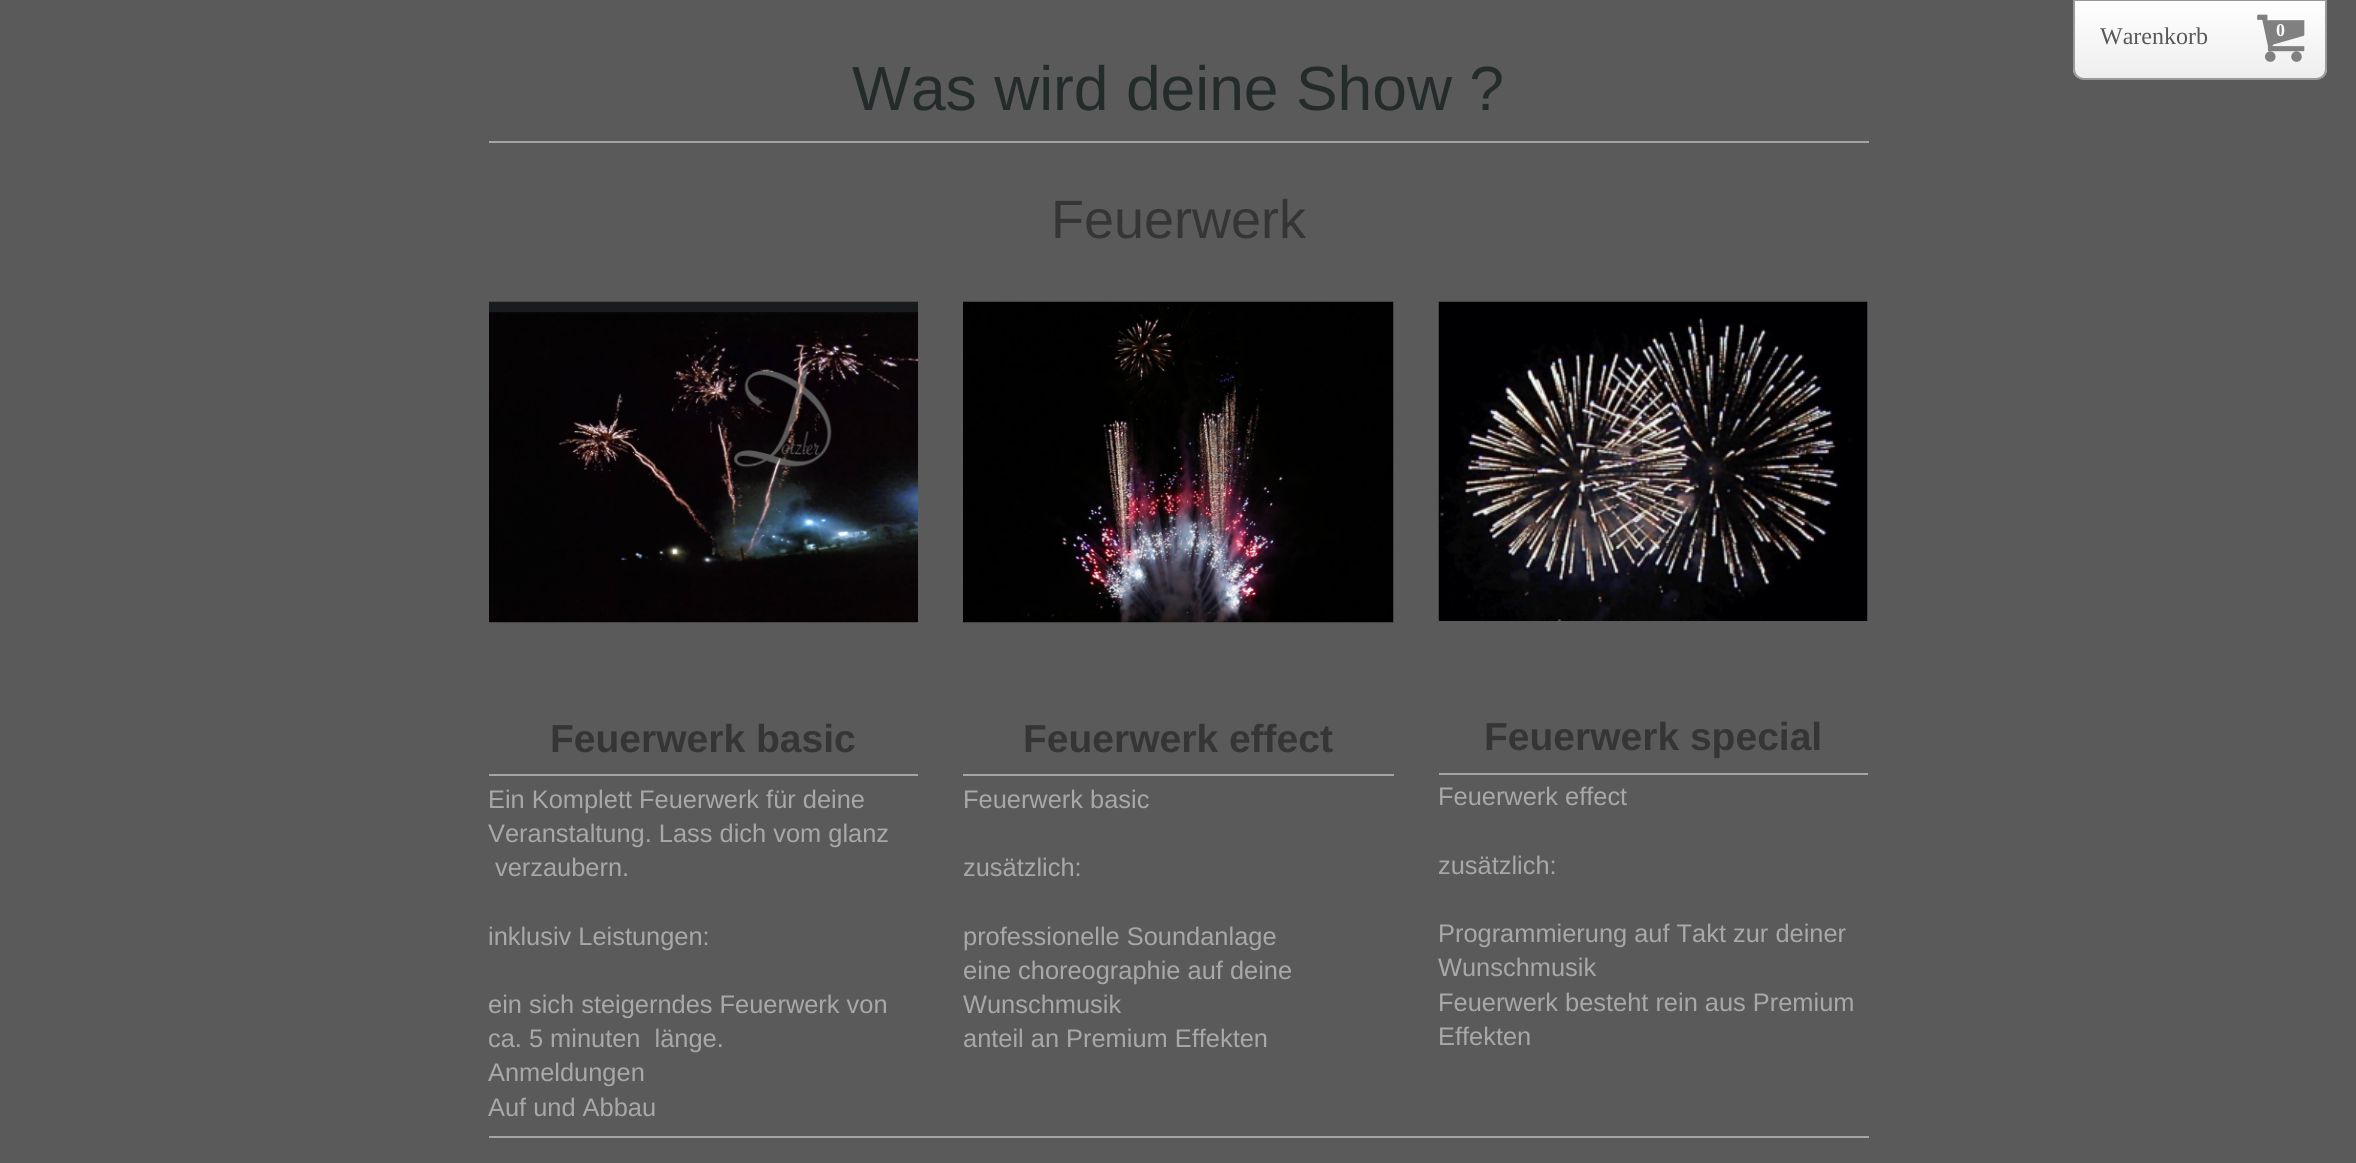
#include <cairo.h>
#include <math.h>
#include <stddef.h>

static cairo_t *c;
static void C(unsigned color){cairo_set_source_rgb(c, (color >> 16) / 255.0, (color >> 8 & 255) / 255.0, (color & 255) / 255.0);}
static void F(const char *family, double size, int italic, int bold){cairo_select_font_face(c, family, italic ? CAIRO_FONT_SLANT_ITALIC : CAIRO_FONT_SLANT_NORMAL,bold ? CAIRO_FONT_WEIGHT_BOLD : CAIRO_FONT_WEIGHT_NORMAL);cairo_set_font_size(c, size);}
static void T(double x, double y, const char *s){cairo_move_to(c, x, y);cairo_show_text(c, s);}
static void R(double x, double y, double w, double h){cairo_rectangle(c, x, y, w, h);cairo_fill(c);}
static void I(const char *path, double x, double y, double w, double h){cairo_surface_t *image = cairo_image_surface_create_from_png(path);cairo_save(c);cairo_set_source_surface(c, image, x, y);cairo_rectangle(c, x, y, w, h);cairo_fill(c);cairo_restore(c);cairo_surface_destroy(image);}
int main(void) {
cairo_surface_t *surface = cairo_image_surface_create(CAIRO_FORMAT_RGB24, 2356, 1163);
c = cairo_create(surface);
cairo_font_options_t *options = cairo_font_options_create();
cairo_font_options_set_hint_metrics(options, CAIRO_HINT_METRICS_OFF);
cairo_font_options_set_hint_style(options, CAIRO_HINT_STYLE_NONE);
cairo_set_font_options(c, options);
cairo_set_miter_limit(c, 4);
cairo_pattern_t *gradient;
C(0x5b5a5a);
cairo_paint(c);
cairo_save(c);
cairo_new_path(c);
cairo_move_to(c,2073,-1);
cairo_line_to(c,2327,-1);
cairo_line_to(c,2327,69);
cairo_curve_to(c,2327,75,2322,80,2316,80);
cairo_line_to(c,2084,80);
cairo_curve_to(c,2078,80,2073,75,2073,69);
cairo_close_path(c);
cairo_clip(c);
gradient = cairo_pattern_create_linear(2200,0,2200,78);
cairo_pattern_add_color_stop_rgba(gradient,0,1,1,1,1);
cairo_pattern_add_color_stop_rgba(gradient,1,0.933,0.933,0.933,1);
cairo_set_source(c,gradient);
cairo_pattern_destroy(gradient);
R(2073,1,254,77);
cairo_restore(c);
cairo_new_path(c);
cairo_move_to(c,2074,0);
cairo_line_to(c,2326,0);
cairo_line_to(c,2326,69);
cairo_curve_to(c,2326,74.5,2321.5,79,2316,79);
cairo_line_to(c,2084,79);
cairo_curve_to(c,2078.5,79,2074,74.5,2074,69);
cairo_close_path(c);
C(0x999999);
cairo_stroke(c);
F("Liberation Serif",24,0,0);
C(0x585858);
T(2100,44,"Warenkorb");
I("1.png",2257,14,48,48);
F("Liberation Serif",18,0,1);
C(0xffffff);
T(2276,36,"0");
F("Liberation Sans",62.4,0,0);
C(0x242b2b);
T(852,110,"Was wird deine Show ?");
C(0xa5a5a5);
R(489,141,1380,2);
F("Liberation Sans",54,0,0);
C(0x353535);
T(1051,238,"Feuerwerk");
I("2.png",489,301,429,322);
F("Liberation Sans",39,0,1);
T(550,752,"Feuerwerk basic");
C(0xa5a5a5);
R(489,774,429,2);
F("Liberation Sans",25.4,0,0);
C(0xa9a8a8);
T(488,808,"Ein Komplett Feuerwerk für deine");
T(488,842,"Veranstaltung. Lass dich vom glanz");
T(495,876,"verzaubern.");
T(488,945,"inklusiv Leistungen:");
T(488,1013,"ein sich steigerndes Feuerwerk von");
T(488,1047,"ca. 5 minuten  länge.");
T(488,1081,"Anmeldungen");
T(488,1116,"Auf und Abbau");
I("3.png",963,301,431,322);
F("Liberation Sans",39,0,1);
C(0x353535);
T(1023,752,"Feuerwerk effect");
C(0xa5a5a5);
R(963,774,431,2);
F("Liberation Sans",25.4,0,0);
C(0xa9a8a8);
T(963,808,"Feuerwerk basic");
T(963,876,"zusätzlich:");
T(963,945,"professionelle Soundanlage");
T(963,979,"eine choreographie auf deine");
T(963,1013,"Wunschmusik");
T(963,1047,"anteil an Premium Effekten");
I("4.png",1438,301,430,320);
F("Liberation Sans",39,0,1);
C(0x353535);
T(1484,750,"Feuerwerk special");
C(0xa5a5a5);
R(1439,773,429,2);
F("Liberation Sans",25.4,0,0);
C(0xa9a8a8);
T(1438,805,"Feuerwerk effect");
T(1438,874,"zusätzlich:");
T(1438,942,"Programmierung auf Takt zur deiner");
T(1438,976,"Wunschmusik");
T(1438,1011,"Feuerwerk besteht rein aus Premium");
T(1438,1045,"Effekten");
C(0xa5a5a5);
R(489,1136,1380,2);
cairo_surface_write_to_png(surface, "o.png");
cairo_font_options_destroy(options);
cairo_destroy(c);
cairo_surface_destroy(surface);
return 0;
}
